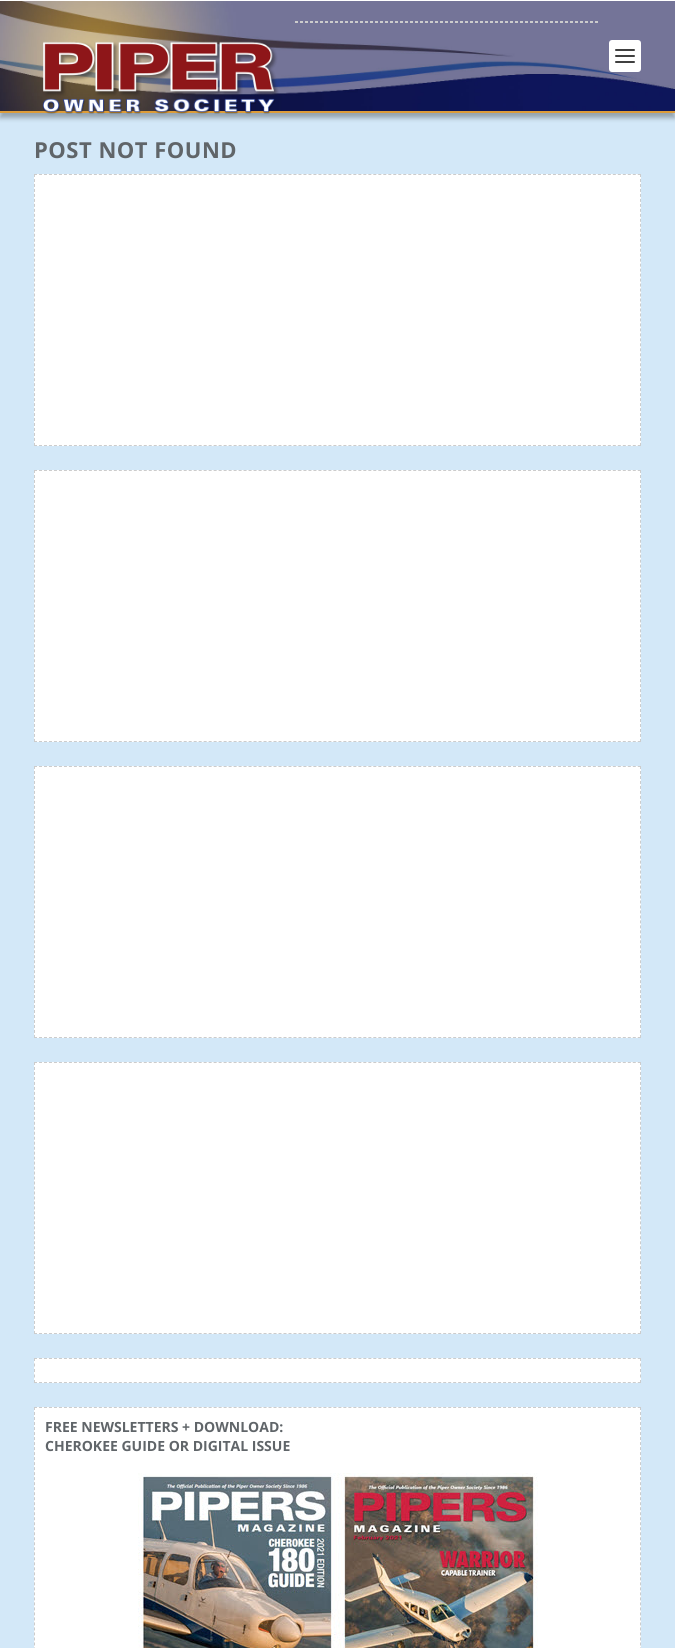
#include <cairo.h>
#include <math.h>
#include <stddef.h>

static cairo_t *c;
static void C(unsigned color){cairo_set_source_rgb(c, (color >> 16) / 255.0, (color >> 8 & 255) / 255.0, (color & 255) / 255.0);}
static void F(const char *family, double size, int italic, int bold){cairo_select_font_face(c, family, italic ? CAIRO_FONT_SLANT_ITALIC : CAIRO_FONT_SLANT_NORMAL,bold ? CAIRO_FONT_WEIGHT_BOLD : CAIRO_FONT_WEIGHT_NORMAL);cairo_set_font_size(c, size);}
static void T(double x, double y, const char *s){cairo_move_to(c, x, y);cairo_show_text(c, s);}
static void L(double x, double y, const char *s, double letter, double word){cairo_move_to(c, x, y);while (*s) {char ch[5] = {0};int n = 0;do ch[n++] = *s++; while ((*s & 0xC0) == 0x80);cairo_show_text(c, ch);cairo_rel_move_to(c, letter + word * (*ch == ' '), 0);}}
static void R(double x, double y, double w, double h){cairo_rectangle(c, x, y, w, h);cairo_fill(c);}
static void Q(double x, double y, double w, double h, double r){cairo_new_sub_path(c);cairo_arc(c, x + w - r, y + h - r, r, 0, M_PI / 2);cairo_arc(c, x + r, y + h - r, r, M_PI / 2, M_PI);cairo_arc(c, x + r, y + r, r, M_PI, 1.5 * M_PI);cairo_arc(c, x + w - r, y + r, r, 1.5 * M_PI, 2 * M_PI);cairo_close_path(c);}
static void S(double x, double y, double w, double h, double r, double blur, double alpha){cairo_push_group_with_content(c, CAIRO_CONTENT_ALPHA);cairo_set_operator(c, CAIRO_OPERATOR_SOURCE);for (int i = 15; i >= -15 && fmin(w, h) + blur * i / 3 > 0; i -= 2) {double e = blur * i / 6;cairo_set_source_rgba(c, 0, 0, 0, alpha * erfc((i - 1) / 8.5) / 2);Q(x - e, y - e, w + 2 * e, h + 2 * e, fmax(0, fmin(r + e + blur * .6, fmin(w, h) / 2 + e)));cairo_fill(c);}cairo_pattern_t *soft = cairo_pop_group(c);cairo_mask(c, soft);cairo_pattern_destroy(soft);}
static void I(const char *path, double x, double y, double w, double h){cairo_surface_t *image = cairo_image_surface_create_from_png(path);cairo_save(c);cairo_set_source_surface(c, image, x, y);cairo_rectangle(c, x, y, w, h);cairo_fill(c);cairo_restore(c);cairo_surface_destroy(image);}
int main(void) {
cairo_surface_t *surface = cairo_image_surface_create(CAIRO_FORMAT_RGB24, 675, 1648);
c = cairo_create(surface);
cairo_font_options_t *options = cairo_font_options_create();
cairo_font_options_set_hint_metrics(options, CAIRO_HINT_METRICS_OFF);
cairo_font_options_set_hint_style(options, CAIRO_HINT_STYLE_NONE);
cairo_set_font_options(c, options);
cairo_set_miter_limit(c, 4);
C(0xd3e8f8);
cairo_paint(c);
C(0x000000);
S(0,5,675,113,0,2.5,.3);
I("1.png",0,1,675,110);
C(0xffffff);
R(0,0,675,1);
C(0xdd9c39);
R(0,111,675,2);
cairo_new_path(c);
cairo_move_to(c,295,21.5);
cairo_line_to(c,598,21.5);
C(0xcccccc);
cairo_set_line_width(c,1);
cairo_set_dash(c,(double[]){3,2},2,0);
cairo_stroke(c);
R(597,21,1,2);
cairo_new_path(c);
cairo_move_to(c,295,22.5);
cairo_line_to(c,598,22.5);
cairo_stroke(c);
I("2.png",42,41,237,73);
C(0xffffff);
Q(609,40,32,32,3);
cairo_fill(c);
C(0x404040);
Q(615,49,20,2,1);
cairo_fill(c);
Q(615,55,20,2,1);
cairo_fill(c);
Q(615,61,20,2,1);
cairo_fill(c);
F("Open Sans",22,0,1);
C(0x606569);
L(34,158,"POST NOT FOUND",.5,0);
C(0xffffff);
R(34,174,607,272);
cairo_new_path(c);
cairo_move_to(c,34,174.5);
cairo_line_to(c,641,174.5);
C(0xcccccc);
cairo_set_dash(c,(double[]){3,1.99},2,0);
cairo_stroke(c);
cairo_new_path(c);
cairo_move_to(c,640.5,174);
cairo_line_to(c,640.5,446);
cairo_set_dash(c,(double[]){3,1.98},2,0);
cairo_stroke(c);
cairo_new_path(c);
cairo_move_to(c,34,445.5);
cairo_line_to(c,641,445.5);
cairo_set_dash(c,(double[]){3,1.99},2,0);
cairo_stroke(c);
cairo_new_path(c);
cairo_move_to(c,34.5,174);
cairo_line_to(c,34.5,446);
cairo_set_dash(c,(double[]){3,1.98},2,0);
cairo_stroke(c);
C(0xffffff);
R(34,470,607,272);
cairo_new_path(c);
cairo_move_to(c,34,470.5);
cairo_line_to(c,641,470.5);
C(0xcccccc);
cairo_set_dash(c,(double[]){3,1.99},2,0);
cairo_stroke(c);
cairo_new_path(c);
cairo_move_to(c,640.5,470);
cairo_line_to(c,640.5,742);
cairo_set_dash(c,(double[]){3,1.98},2,0);
cairo_stroke(c);
cairo_new_path(c);
cairo_move_to(c,34,741.5);
cairo_line_to(c,641,741.5);
cairo_set_dash(c,(double[]){3,1.99},2,0);
cairo_stroke(c);
cairo_new_path(c);
cairo_move_to(c,34.5,470);
cairo_line_to(c,34.5,742);
cairo_set_dash(c,(double[]){3,1.98},2,0);
cairo_stroke(c);
C(0xffffff);
R(34,766,607,272);
cairo_new_path(c);
cairo_move_to(c,34,766.5);
cairo_line_to(c,641,766.5);
C(0xcccccc);
cairo_set_dash(c,(double[]){3,1.99},2,0);
cairo_stroke(c);
cairo_new_path(c);
cairo_move_to(c,640.5,766);
cairo_line_to(c,640.5,1038);
cairo_set_dash(c,(double[]){3,1.98},2,0);
cairo_stroke(c);
cairo_new_path(c);
cairo_move_to(c,34,1037.5);
cairo_line_to(c,641,1037.5);
cairo_set_dash(c,(double[]){3,1.99},2,0);
cairo_stroke(c);
cairo_new_path(c);
cairo_move_to(c,34.5,766);
cairo_line_to(c,34.5,1038);
cairo_set_dash(c,(double[]){3,1.98},2,0);
cairo_stroke(c);
C(0xffffff);
R(34,1062,607,272);
cairo_new_path(c);
cairo_move_to(c,34,1062.5);
cairo_line_to(c,641,1062.5);
C(0xcccccc);
cairo_set_dash(c,(double[]){3,1.99},2,0);
cairo_stroke(c);
cairo_new_path(c);
cairo_move_to(c,640.5,1062);
cairo_line_to(c,640.5,1334);
cairo_set_dash(c,(double[]){3,1.98},2,0);
cairo_stroke(c);
cairo_new_path(c);
cairo_move_to(c,34,1333.5);
cairo_line_to(c,641,1333.5);
cairo_set_dash(c,(double[]){3,1.99},2,0);
cairo_stroke(c);
cairo_new_path(c);
cairo_move_to(c,34.5,1062);
cairo_line_to(c,34.5,1334);
cairo_set_dash(c,(double[]){3,1.98},2,0);
cairo_stroke(c);
C(0xffffff);
R(34,1358,607,25);
cairo_new_path(c);
cairo_move_to(c,34,1358.5);
cairo_line_to(c,641,1358.5);
C(0xcccccc);
cairo_set_dash(c,(double[]){3,1.99},2,0);
cairo_stroke(c);
cairo_new_path(c);
cairo_move_to(c,640.5,1358);
cairo_line_to(c,640.5,1383);
cairo_set_dash(c,(double[]){3,2.5},2,0);
cairo_stroke(c);
cairo_new_path(c);
cairo_move_to(c,34,1382.5);
cairo_line_to(c,641,1382.5);
cairo_set_dash(c,(double[]){3,1.99},2,0);
cairo_stroke(c);
cairo_new_path(c);
cairo_move_to(c,34.5,1358);
cairo_line_to(c,34.5,1383);
cairo_set_dash(c,(double[]){3,2.5},2,0);
cairo_stroke(c);
C(0xffffff);
R(34,1407,607,241);
cairo_new_path(c);
cairo_move_to(c,34,1407.5);
cairo_line_to(c,641,1407.5);
C(0xcccccc);
cairo_set_dash(c,(double[]){3,1.99},2,0);
cairo_stroke(c);
cairo_new_path(c);
cairo_move_to(c,640.5,1407);
cairo_line_to(c,640.5,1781);
cairo_set_dash(c,(double[]){3,2.01},2,0);
cairo_stroke(c);
cairo_new_path(c);
cairo_move_to(c,34.5,1407);
cairo_line_to(c,34.5,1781);
cairo_stroke(c);
F("Open Sans",14,0,1);
C(0x606569);
T(45,1432,"FREE NEWSLETTERS + DOWNLOAD:");
T(45,1451,"CHEROKEE GUIDE OR DIGITAL ISSUE");
I("3.png",138,1473,400,175);
cairo_surface_write_to_png(surface, "o.png");
cairo_font_options_destroy(options);
cairo_destroy(c);
cairo_surface_destroy(surface);
return 0;
}
